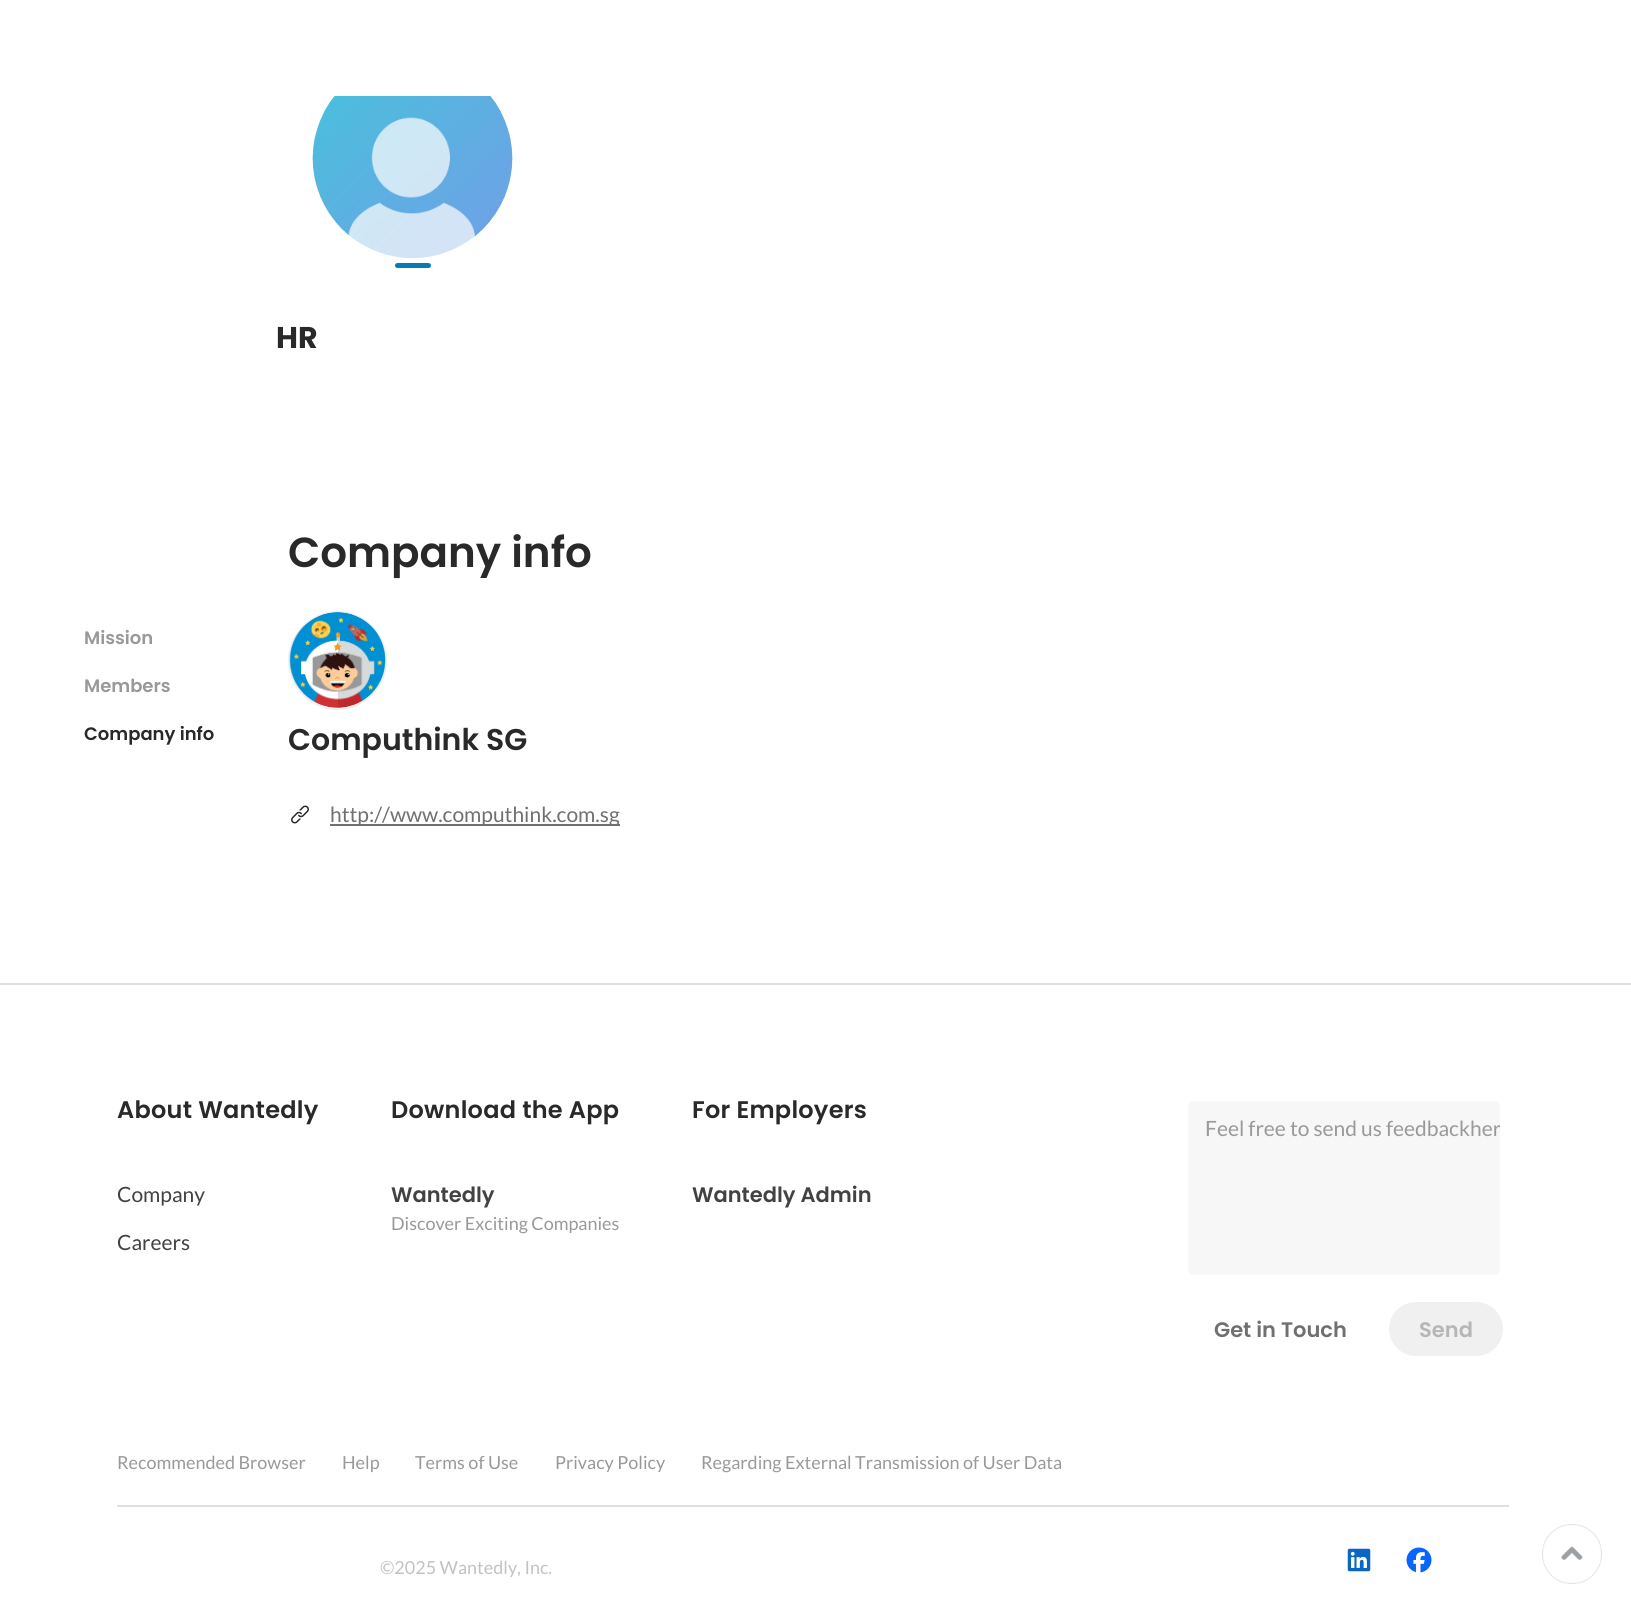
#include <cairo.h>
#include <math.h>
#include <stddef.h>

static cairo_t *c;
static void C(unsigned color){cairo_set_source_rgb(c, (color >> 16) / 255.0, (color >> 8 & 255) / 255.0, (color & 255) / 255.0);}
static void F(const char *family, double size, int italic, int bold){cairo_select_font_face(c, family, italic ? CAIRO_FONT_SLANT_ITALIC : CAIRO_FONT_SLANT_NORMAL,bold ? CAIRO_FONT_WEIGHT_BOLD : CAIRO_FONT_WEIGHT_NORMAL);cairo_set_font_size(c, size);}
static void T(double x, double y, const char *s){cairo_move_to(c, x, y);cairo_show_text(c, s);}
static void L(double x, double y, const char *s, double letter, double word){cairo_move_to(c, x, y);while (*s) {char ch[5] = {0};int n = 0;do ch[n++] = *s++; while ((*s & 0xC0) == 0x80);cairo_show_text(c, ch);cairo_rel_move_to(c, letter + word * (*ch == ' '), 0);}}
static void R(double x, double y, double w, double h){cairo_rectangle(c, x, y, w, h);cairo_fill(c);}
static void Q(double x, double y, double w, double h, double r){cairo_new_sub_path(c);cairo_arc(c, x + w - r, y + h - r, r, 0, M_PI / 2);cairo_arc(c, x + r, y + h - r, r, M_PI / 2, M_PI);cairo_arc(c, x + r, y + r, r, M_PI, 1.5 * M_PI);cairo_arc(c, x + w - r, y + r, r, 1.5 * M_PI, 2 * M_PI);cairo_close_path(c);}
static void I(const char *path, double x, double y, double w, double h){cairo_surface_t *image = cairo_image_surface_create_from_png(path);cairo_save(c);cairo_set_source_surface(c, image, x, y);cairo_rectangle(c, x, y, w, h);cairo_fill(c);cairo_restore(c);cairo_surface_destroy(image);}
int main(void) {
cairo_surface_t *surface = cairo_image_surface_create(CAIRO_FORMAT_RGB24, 1631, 1614);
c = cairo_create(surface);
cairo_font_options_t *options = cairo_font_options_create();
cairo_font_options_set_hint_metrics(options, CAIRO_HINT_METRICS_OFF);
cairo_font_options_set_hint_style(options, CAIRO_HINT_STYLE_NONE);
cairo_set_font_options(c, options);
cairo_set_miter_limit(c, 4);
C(0xffffff);
cairo_paint(c);
I("1.png",312,96,201,163);
C(0x057cb3);
Q(395,263,36,5,2.5);
cairo_fill(c);
F("Poppins",30,0,1);
C(0x292929);
T(276,348,"HR");
F("Poppins SemiBold",18,0,0);
C(0x999999);
T(84,644,"Mission");
T(84,692,"Members");
C(0x292929);
T(84,740,"Company info");
F("Poppins SemiBold",42,0,0);
T(288,567,"Company info");
cairo_new_path(c);
cairo_arc(c,337.5,660.5,48.5,0,2 * M_PI);
C(0xf0f0f0);
cairo_stroke(c);
I("2.png",289,612,97,96);
F("Poppins SemiBold",30,0,0);
C(0x292929);
T(288,750,"Computhink SG");
I("3.png",291,805,18,19);
C(0x707070);
R(330,824,290,2);
F("Lato",21,0,0);
T(330,822,"http://www.computhink.com.sg");
I("4.png",1542,1524,60,60);
C(0xe0e0e0);
R(0,983,1631,2);
F("Poppins SemiBold",24,0,0);
C(0x292929);
L(117,1118,"About Wantedly",.25,0);
F("Lato",21,0,0);
C(0x424242);
T(117,1202,"Company");
T(117,1250,"Careers");
F("Poppins SemiBold",24,0,0);
C(0x292929);
L(391,1118,"Download the App",.25,0);
F("Poppins SemiBold",21,0,0);
C(0x424242);
T(391,1202,"Wantedly");
F("Lato",18,0,0);
C(0x999999);
T(391,1230,"Discover Exciting Companies");
F("Poppins SemiBold",24,0,0);
C(0x292929);
L(692,1118,"For Employers",.25,0);
F("Poppins SemiBold",21,0,0);
C(0x424242);
T(692,1202,"Wantedly Admin");
C(0xf7f7f7);
Q(1188,1101,312,174,6);
cairo_fill(c);
F("Lato",21,0,0);
C(0x999999);
T(1205,1136,"Feel free to send us feedback");
cairo_save(c);
Q(1188,1101,312,174,6);
cairo_clip(c);
T(1470,1136,"her");
cairo_restore(c);
F("Poppins SemiBold",21,0,0);
C(0x707070);
T(1214,1337,"Get in Touch");
C(0xf0f0f0);
Q(1389,1302,114,54,27);
cairo_fill(c);
C(0xb6b6b6);
T(1419,1337,"Send");
F("Lato",18,0,0);
C(0x999999);
T(117,1469,"Recommended Browser");
T(342,1469,"Help");
T(415,1469,"Terms of Use");
T(555,1469,"Privacy Policy");
T(701,1469,"Regarding External Transmission of User Data");
C(0xe0e0e0);
R(117,1505,1392,2);
C(0xc2c2c2);
T(380,1574,"©2025 Wantedly, Inc.");
I("5.png",1347,1548,24,24);
I("6.png",1406,1547,26,26);
cairo_surface_write_to_png(surface, "o.png");
cairo_font_options_destroy(options);
cairo_destroy(c);
cairo_surface_destroy(surface);
return 0;
}
